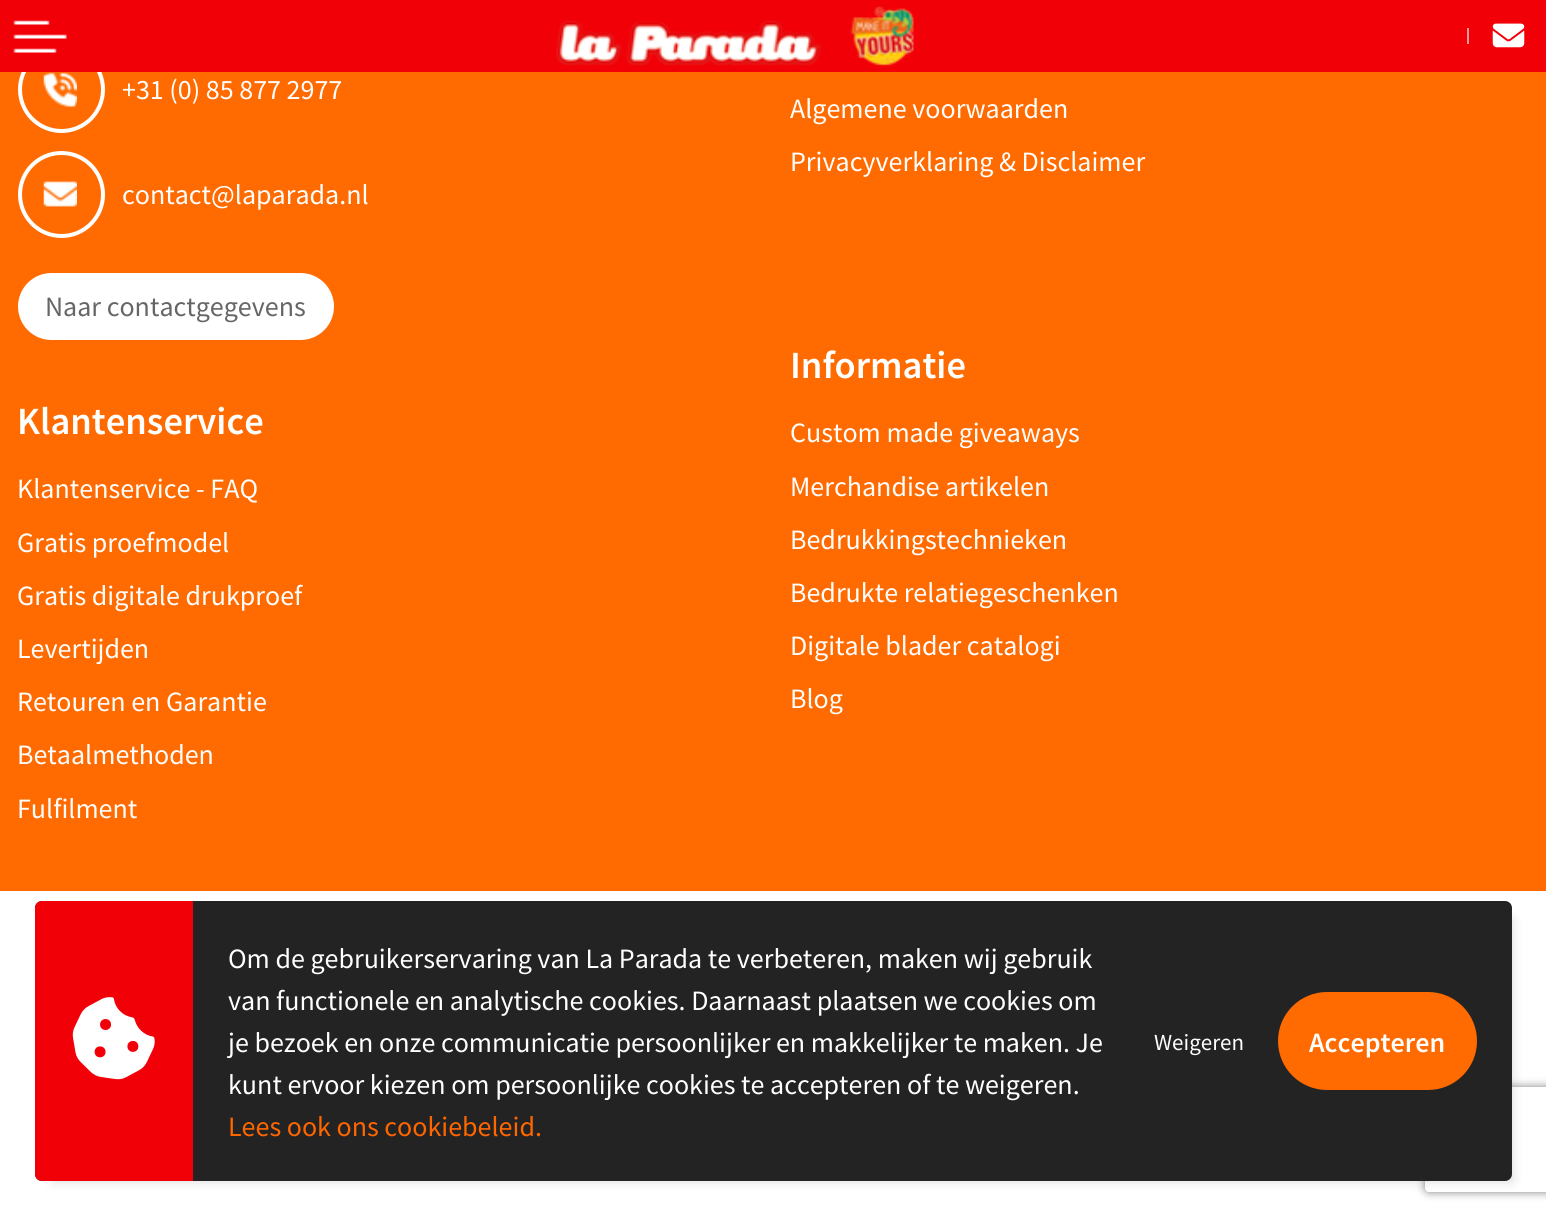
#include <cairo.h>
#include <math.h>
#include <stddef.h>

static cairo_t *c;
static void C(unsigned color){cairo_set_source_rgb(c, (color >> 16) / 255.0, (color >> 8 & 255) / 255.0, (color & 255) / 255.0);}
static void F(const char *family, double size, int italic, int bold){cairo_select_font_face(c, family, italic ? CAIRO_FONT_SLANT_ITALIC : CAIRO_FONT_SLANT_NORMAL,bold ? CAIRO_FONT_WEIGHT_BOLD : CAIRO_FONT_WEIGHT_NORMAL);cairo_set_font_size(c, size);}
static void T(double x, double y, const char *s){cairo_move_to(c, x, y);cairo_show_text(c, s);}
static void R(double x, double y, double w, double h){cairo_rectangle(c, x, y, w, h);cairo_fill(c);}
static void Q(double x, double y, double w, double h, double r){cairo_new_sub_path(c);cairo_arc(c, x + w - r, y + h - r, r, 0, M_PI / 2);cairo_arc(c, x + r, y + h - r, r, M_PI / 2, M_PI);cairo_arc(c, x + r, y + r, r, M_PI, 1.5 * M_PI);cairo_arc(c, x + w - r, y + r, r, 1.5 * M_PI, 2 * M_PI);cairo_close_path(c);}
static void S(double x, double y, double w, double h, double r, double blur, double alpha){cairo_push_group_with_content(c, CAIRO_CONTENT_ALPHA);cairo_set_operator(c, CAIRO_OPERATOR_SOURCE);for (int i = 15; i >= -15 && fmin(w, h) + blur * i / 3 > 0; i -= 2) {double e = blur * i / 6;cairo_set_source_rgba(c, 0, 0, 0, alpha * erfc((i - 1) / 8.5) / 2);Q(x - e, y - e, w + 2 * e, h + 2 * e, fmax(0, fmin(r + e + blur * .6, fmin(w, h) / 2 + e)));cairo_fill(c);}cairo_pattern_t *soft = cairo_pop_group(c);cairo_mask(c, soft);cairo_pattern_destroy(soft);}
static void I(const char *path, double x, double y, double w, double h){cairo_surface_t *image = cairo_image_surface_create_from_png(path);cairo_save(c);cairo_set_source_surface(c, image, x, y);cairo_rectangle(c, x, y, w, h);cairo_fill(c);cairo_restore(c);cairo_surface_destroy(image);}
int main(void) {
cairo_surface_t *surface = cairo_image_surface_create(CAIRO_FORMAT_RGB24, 1546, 1215);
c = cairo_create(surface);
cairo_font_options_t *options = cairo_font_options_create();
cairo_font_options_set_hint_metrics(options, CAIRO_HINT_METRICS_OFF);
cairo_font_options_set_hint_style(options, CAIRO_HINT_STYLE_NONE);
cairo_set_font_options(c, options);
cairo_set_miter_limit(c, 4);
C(0xffffff);
cairo_paint(c);
C(0xff6b00);
R(0,72,1546,819);
cairo_arc(c,61.5,89.5,41.5,0,2 * M_PI);
C(0xffffff);
cairo_set_line_width(c,4);
cairo_stroke(c);
C(0xf20008);
R(0,0,1546,72);
I("1.png",13,20,54,33);
I("2.png",556,6,358,60);
C(0xfa999c);
R(1467,28,2,16);
I("3.png",1492,23,33,25);
I("4.png",43,72,34,35);
F("Source Sans Pro",28,0,0);
C(0xffffff);
T(122,99,"+31 (0) 85 877 2977");
cairo_new_path(c);
cairo_arc(c,61.5,194.5,41.5,0,2 * M_PI);
cairo_stroke(c);
I("5.png",43,181,34,26);
T(122,204,"contact@laparada.nl");
Q(19,274,314,65,32.5);
cairo_fill_preserve(c);
cairo_set_line_width(c,2);
cairo_stroke(c);
C(0x666666);
T(45,316,"Naar contactgegevens");
C(0xffffff);
T(790,118,"Algemene voorwaarden");
T(790,171,"Privacyverklaring & Disclaimer");
F("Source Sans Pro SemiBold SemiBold",38.5,0,0);
T(17,434,"Klantenservice");
F("Source Sans Pro",28,0,0);
T(17,498,"Klantenservice - FAQ");
T(17,552,"Gratis proefmodel");
T(17,605,"Gratis digitale drukproef");
T(17,658,"Levertijden");
T(17,711,"Retouren en Garantie");
T(17,764,"Betaalmethoden");
T(17,818,"Fulfilment");
F("Source Sans Pro SemiBold SemiBold",38.5,0,0);
T(790,378,"Informatie");
F("Source Sans Pro",28,0,0);
T(790,442,"Custom made giveaways");
T(790,496,"Merchandise artikelen");
T(790,549,"Bedrukkingstechnieken");
T(790,602,"Bedrukte relatiegeschenken");
T(790,655,"Digitale blader catalogi");
T(790,708,"Blog");
C(0x000000);
S(53,919,1459,262,0,6,.15);
cairo_save(c);
cairo_set_fill_rule(c,CAIRO_FILL_RULE_EVEN_ODD);
cairo_new_path(c);
cairo_move_to(c,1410,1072);
cairo_line_to(c,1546,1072);
cairo_line_to(c,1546,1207);
cairo_line_to(c,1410,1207);
cairo_close_path(c);
cairo_move_to(c,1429,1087);
cairo_line_to(c,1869,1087);
cairo_curve_to(c,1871,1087,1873,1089,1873,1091);
cairo_line_to(c,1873,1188);
cairo_curve_to(c,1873,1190,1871,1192,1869,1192);
cairo_line_to(c,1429,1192);
cairo_curve_to(c,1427,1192,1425,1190,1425,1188);
cairo_line_to(c,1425,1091);
cairo_curve_to(c,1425,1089,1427,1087,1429,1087);
cairo_close_path(c);
cairo_clip(c);
C(0x808080);
S(1425,1087,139,105,4,4.5,1);
cairo_restore(c);
C(0x232323);
Q(35,901,1477,280,7);
cairo_fill(c);
C(0xf20008);
cairo_new_path(c);
cairo_move_to(c,42,901);
cairo_line_to(c,193,901);
cairo_line_to(c,193,1181);
cairo_line_to(c,42,1181);
cairo_curve_to(c,38,1181,35,1178,35,1174);
cairo_line_to(c,35,908);
cairo_curve_to(c,35,904,38,901,42,901);
cairo_close_path(c);
cairo_fill(c);
I("6.png",72,997,83,83);
C(0xffffff);
T(228,968,"Om de gebruikerservaring van La Parada te verbeteren, maken wij gebruik");
T(228,1010,"van functionele en analytische cookies. Daarnaast plaatsen we cookies om");
T(228,1052,"je bezoek en onze communicatie persoonlijker en makkelijker te maken. Je");
F("Source Sans Pro",23,0,0);
T(1154,1050,"Weigeren");
C(0xff6b00);
Q(1278,992,199,98,49);
cairo_fill(c);
F("Source Sans Pro SemiBold SemiBold",28,0,0);
C(0xffffff);
T(1309,1052,"Accepteren");
F("Source Sans Pro",28,0,0);
T(228,1094,"kunt ervoor kiezen om persoonlijke cookies te accepteren of te weigeren.");
C(0xff6600);
T(228,1136,"Lees ook ons cookiebeleid.");
cairo_surface_write_to_png(surface, "o.png");
cairo_font_options_destroy(options);
cairo_destroy(c);
cairo_surface_destroy(surface);
return 0;
}
